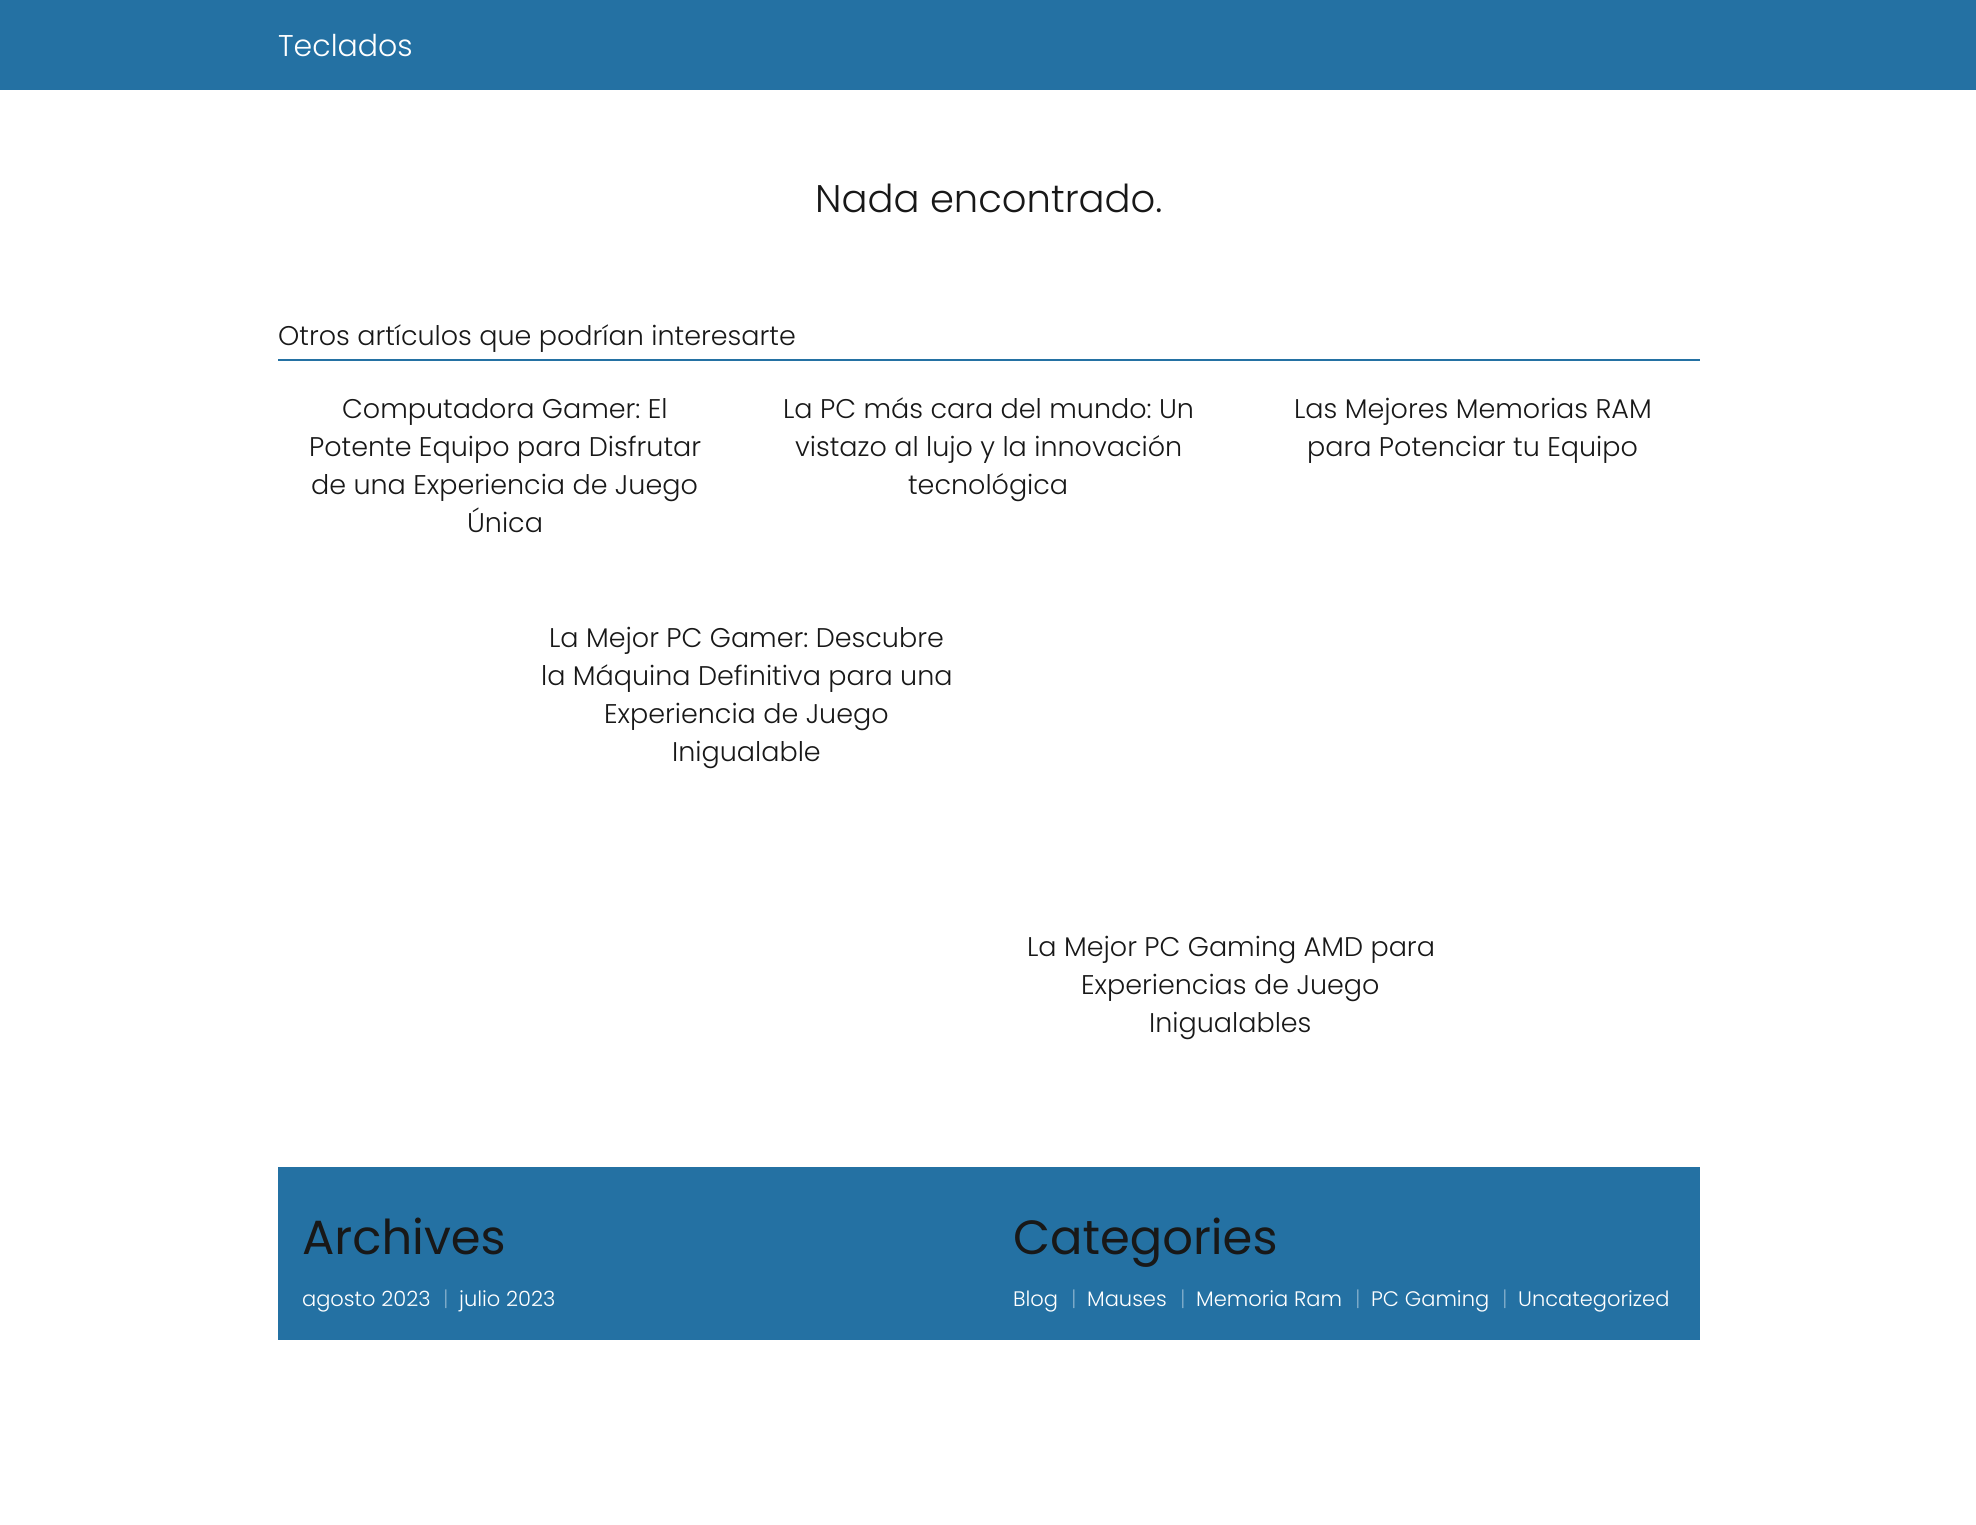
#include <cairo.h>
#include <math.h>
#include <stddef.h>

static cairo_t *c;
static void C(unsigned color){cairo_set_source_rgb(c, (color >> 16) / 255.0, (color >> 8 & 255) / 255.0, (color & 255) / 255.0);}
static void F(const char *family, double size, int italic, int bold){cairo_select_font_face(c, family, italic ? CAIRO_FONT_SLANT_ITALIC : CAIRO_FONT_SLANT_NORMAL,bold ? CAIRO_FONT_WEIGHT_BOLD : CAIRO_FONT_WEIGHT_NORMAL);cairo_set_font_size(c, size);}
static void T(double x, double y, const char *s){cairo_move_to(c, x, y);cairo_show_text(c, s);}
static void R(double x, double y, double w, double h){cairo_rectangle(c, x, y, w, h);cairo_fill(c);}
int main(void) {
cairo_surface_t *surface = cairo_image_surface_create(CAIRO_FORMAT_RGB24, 1976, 1525);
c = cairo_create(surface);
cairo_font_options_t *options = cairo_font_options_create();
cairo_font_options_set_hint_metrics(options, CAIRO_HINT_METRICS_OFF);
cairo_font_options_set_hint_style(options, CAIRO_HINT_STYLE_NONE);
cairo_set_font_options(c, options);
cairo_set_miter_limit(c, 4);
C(0xffffff);
cairo_paint(c);
C(0x2471a3);
R(0,0,1976,90);
F("Poppins Light",30,0,0);
C(0xffffff);
T(278,56,"Teclados");
F("Poppins Light",38.5,0,0);
C(0x181818);
T(815,212,"Nada encontrado.");
C(0x2471a3);
R(278,359,1422,2);
F("Poppins Light",27,0,0);
C(0x181818);
T(278,345,"Otros artículos que podrían interesarte");
T(342,418,"Computadora Gamer: El");
T(309,456,"Potente Equipo para Disfrutar");
T(311,494,"de una Experiencia de Juego");
T(467,532,"Única");
T(783,418,"La PC más cara del mundo: Un");
T(795,456,"vistazo al lujo y la innovación");
T(908,494,"tecnológica");
T(1294,418,"Las Mejores Memorias RAM");
T(1307,456,"para Potenciar tu Equipo");
T(549,647,"La Mejor PC Gamer: Descubre");
T(541,685,"la Máquina Definitiva para una");
T(604,723,"Experiencia de Juego");
T(672,761,"Inigualable");
T(1027,956,"La Mejor PC Gaming AMD para");
T(1081,994,"Experiencias de Juego");
T(1149,1032,"Inigualables");
C(0x2471a3);
R(278,1167,1422,173);
F("Poppins",48,0,0);
C(0x181818);
T(302,1254,"Archives");
F("Poppins Light",21,0,0);
C(0xffffff);
T(302,1306,"agosto 2023");
C(0x7caac8);
T(443,1306,"|");
C(0xffffff);
T(459,1306,"julio 2023");
F("Poppins",48,0,0);
C(0x181818);
T(1013,1254,"Categories");
F("Poppins Light",21,0,0);
C(0xffffff);
T(1013,1306,"Blog");
C(0x7caac8);
T(1071,1306,"|");
C(0xffffff);
T(1087,1306,"Mauses");
C(0x7caac8);
T(1180,1306,"|");
C(0xffffff);
T(1196,1306,"Memoria Ram");
C(0x7caac8);
T(1355,1306,"|");
C(0xffffff);
T(1371,1306,"PC Gaming");
C(0x7caac8);
T(1502,1306,"|");
C(0xffffff);
T(1518,1306,"Uncategorized");
cairo_surface_write_to_png(surface, "o.png");
cairo_font_options_destroy(options);
cairo_destroy(c);
cairo_surface_destroy(surface);
return 0;
}
